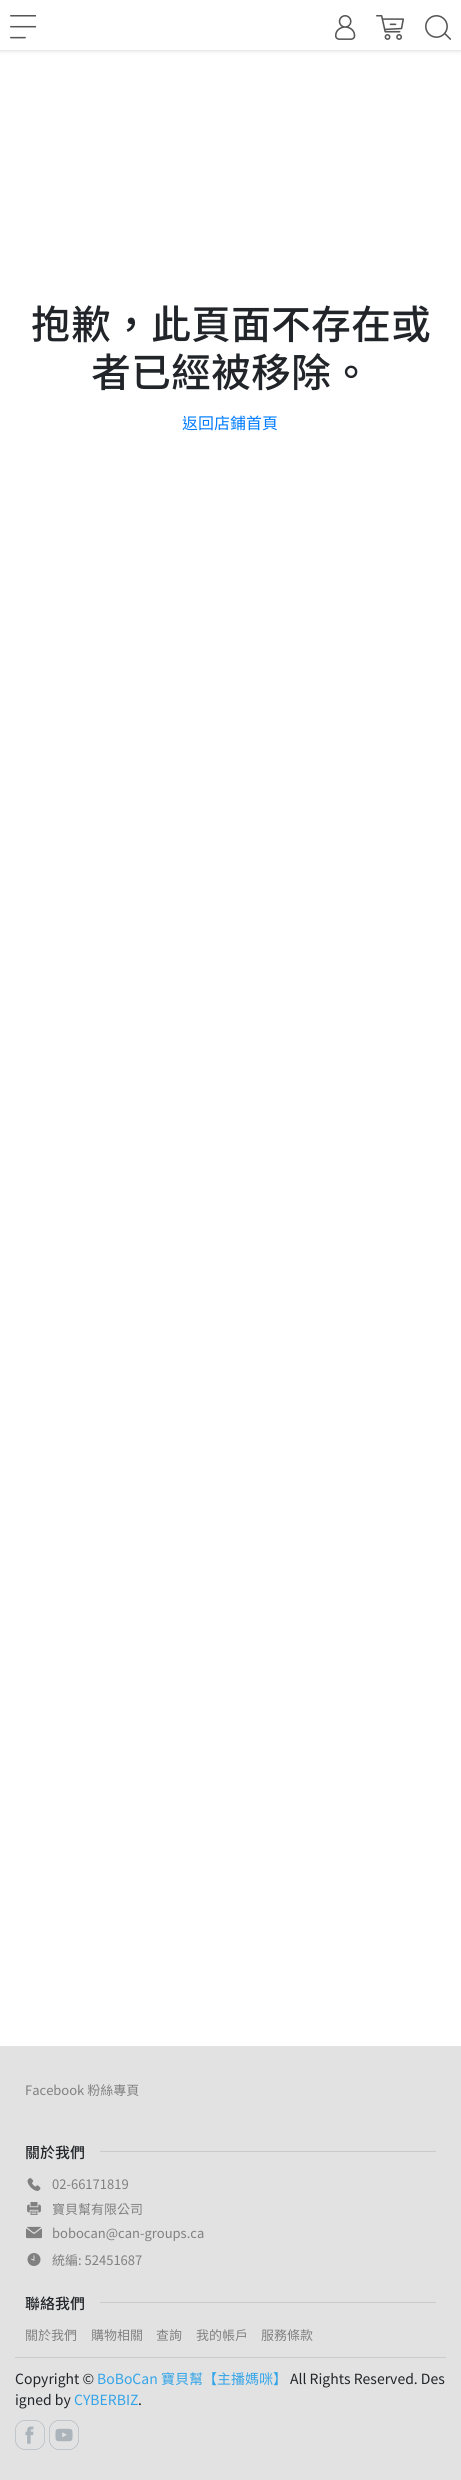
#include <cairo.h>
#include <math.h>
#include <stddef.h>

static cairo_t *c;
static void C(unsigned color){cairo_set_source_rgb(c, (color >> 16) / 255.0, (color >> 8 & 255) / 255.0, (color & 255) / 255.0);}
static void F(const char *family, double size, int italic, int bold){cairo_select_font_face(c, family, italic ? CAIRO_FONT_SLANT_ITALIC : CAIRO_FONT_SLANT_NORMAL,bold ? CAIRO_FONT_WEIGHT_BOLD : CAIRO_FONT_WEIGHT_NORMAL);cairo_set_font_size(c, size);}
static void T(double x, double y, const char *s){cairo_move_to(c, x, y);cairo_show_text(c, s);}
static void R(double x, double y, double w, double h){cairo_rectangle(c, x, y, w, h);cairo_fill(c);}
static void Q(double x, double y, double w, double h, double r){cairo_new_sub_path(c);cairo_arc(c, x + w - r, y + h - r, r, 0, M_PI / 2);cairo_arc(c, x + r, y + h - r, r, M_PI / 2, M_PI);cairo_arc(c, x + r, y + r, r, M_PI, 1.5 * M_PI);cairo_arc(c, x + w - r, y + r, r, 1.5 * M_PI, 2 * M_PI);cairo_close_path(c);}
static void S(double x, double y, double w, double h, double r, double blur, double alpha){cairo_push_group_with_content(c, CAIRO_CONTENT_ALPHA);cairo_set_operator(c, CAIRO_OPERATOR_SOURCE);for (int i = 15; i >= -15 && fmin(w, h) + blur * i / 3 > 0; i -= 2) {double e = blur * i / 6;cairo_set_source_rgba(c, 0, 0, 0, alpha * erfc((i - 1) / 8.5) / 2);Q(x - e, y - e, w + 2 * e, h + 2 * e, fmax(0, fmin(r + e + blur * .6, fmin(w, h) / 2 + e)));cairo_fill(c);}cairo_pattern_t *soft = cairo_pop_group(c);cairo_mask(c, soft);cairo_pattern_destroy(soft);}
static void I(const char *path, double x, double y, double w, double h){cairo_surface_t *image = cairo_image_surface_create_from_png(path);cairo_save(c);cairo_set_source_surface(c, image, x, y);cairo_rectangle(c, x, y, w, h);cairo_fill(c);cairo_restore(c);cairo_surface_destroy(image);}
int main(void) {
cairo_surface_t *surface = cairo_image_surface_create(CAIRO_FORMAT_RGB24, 461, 2480);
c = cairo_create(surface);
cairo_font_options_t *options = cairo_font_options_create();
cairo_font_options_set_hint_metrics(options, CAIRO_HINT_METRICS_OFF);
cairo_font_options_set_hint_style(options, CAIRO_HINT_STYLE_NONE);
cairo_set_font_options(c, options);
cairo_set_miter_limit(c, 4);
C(0xffffff);
cairo_paint(c);
C(0x000000);
S(0,0,461,50,0,2.5,.2);
C(0xffffff);
R(0,0,461,50);
I("1.png",10,15,26,24);
I("2.png",335,15,21,25);
I("3.png",376,15,28,25);
I("4.png",425,15,26,25);
F("Noto Sans TC Medium",40,0,0);
C(0x212529);
T(31,339,"抱歉，此頁面不存在或");
T(91,387,"者已經被移除。");
F("Noto Sans TC",16,0,0);
C(0x007bff);
T(182,429,"返回店鋪首頁");
C(0xe2e2e2);
R(0,2046,461,434);
F("Noto Sans TC",13,0,0);
C(0x808080);
T(25,2095,"Facebook 粉絲專頁");
F("Noto Sans TC Medium",15,0,0);
C(0x212529);
T(25,2158,"關於我們");
C(0xcbcbcb);
R(100,2151,336,1);
I("5.png",27,2178,14,13);
F("Noto Sans TC",13,0,0);
C(0x808080);
T(52,2189,"02-66171819");
I("6.png",27,2202,14,13);
T(52,2214,"寶貝幫有限公司");
I("7.png",26,2226,16,13);
T(52,2238,"bobocan@can-groups.ca");
I("8.png",27,2253,14,13);
T(52,2265,"統編: 52451687");
F("Noto Sans TC Medium",15,0,0);
C(0x212529);
T(25,2309,"聯絡我們");
C(0xcbcbcb);
R(100,2302,336,1);
F("Noto Sans TC",13,0,0);
C(0x808080);
T(25,2340,"關於我們");
T(91,2340,"購物相關");
T(156,2340,"查詢");
T(196,2340,"我的帳戶");
T(261,2340,"服務條款");
C(0xcbcbcb);
R(15,2357,431,1);
F("Noto Sans TC",14,0,0);
C(0x212529);
T(15,2384,"Copyright ©");
C(0x33a4e8);
T(97,2384,"BoBoCan 寶貝幫【主播媽咪】");
C(0x212529);
T(290,2384,"All Rights Reserved. Des");
T(15,2405,"igned by");
C(0x33a4e8);
T(74,2405,"CYBERBIZ");
C(0x212529);
T(138,2405,".");
I("9.png",15,2420,30,30);
I("10.png",49,2420,30,30);
cairo_surface_write_to_png(surface, "o.png");
cairo_font_options_destroy(options);
cairo_destroy(c);
cairo_surface_destroy(surface);
return 0;
}
